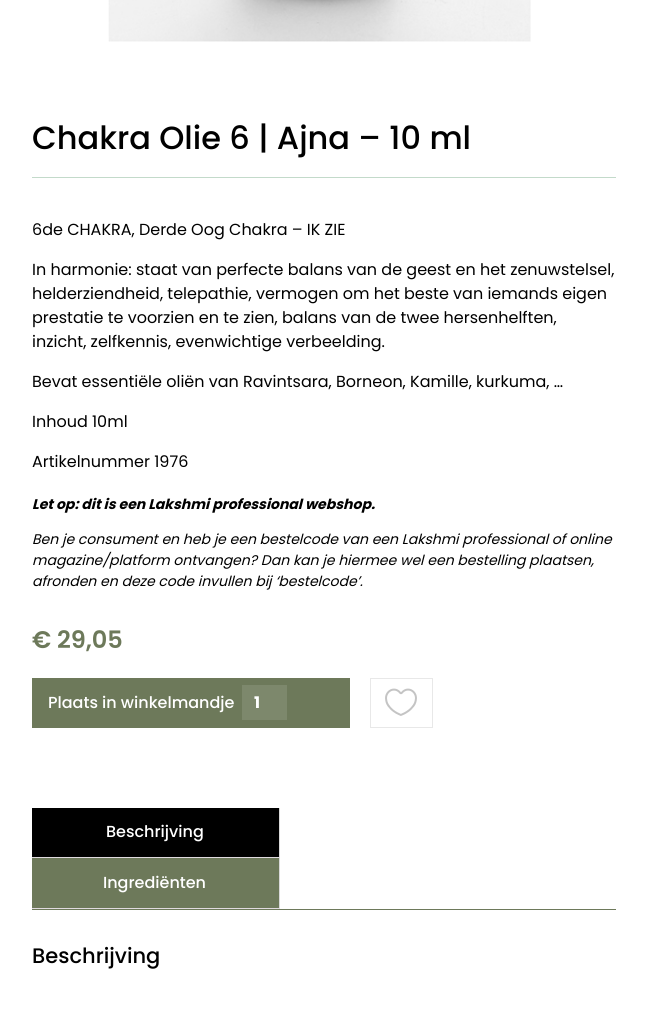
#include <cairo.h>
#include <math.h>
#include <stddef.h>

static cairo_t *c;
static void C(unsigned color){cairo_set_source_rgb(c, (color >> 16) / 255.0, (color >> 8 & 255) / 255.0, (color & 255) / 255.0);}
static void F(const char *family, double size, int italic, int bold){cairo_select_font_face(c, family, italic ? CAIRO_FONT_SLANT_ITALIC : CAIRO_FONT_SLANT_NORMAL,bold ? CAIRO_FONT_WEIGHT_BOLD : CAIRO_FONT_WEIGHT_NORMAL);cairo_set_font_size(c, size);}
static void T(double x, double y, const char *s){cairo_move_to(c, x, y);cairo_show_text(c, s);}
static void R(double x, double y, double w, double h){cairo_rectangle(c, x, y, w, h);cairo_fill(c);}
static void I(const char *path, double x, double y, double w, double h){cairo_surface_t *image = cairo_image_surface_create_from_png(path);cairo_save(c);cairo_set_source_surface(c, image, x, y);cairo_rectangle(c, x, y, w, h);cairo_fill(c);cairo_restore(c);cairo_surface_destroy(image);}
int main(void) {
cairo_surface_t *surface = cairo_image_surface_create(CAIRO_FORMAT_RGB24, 648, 1022);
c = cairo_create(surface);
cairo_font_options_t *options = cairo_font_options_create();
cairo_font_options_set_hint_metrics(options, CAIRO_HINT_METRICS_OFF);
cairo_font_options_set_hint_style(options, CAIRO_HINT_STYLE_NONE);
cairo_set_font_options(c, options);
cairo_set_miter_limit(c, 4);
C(0xffffff);
cairo_paint(c);
I("1.png",108,0,423,42);
C(0xc3daca);
R(32,177,584,1);
F("Poppins Medium",32,0,0);
C(0x000000);
T(32,149,"Chakra Olie 6 | Ajna – 10 ml");
F("Poppins",16,0,0);
T(32,235,"6de CHAKRA, Derde Oog Chakra – IK ZIE");
T(32,275,"In harmonie: staat van perfecte balans van de geest en het zenuwstelsel,");
T(32,299,"helderziendheid, telepathie, vermogen om het beste van iemands eigen");
T(32,323,"prestatie te voorzien en te zien, balans van de twee hersenhelften,");
T(32,347,"inzicht, zelfkennis, evenwichtige verbeelding.");
T(32,387,"Bevat essentiële oliën van Ravintsara, Borneon, Kamille, kurkuma, …");
T(32,427,"Inhoud 10ml");
T(32,467,"Artikelnummer 1976");
F("Poppins",14,1,1);
T(32,509,"Let op: dit is een Lakshmi professional webshop.");
F("Poppins",14,1,0);
T(32,544,"Ben je consument en heb je een bestelcode van een Lakshmi professional of online");
T(32,565,"magazine/platform ontvangen? Dan kan je hiermee wel een bestelling plaatsen,");
T(32,586,"afronden en deze code invullen bij ‘bestelcode’.");
F("Poppins SemiBold",24,0,0);
C(0x6d795a);
T(32,648,"€ 29,05");
R(32,678,318,50);
F("Poppins Medium",16,0,0);
C(0xffffff);
T(48,708,"Plaats in winkelmandje");
C(0x7d886c);
R(242,685,45,35);
F("Poppins",16,0,1);
C(0xffffff);
T(254,708,"1");
cairo_rectangle(c,370.5,678.5,62,49);
C(0xe8e8e8);
cairo_set_line_width(c,1);
cairo_stroke(c);
I("2.png",385,688,32,28);
C(0x6d795a);
R(32,909,584,1);
C(0xd9d9d9);
R(279,808,1,101);
C(0xe0dadf);
R(32,857,248,1);
C(0x000000);
R(32,808,247,49);
F("Poppins Medium",16,0,0);
C(0xffffff);
T(106,837,"Beschrijving");
C(0xe0dadf);
R(32,908,248,1);
C(0x6d795a);
R(32,858,247,50);
C(0xffffff);
T(103,888,"Ingrediënten");
F("Poppins Medium",21,0,0);
C(0x000000);
T(32,963,"Beschrijving");
cairo_surface_write_to_png(surface, "o.png");
cairo_font_options_destroy(options);
cairo_destroy(c);
cairo_surface_destroy(surface);
return 0;
}
